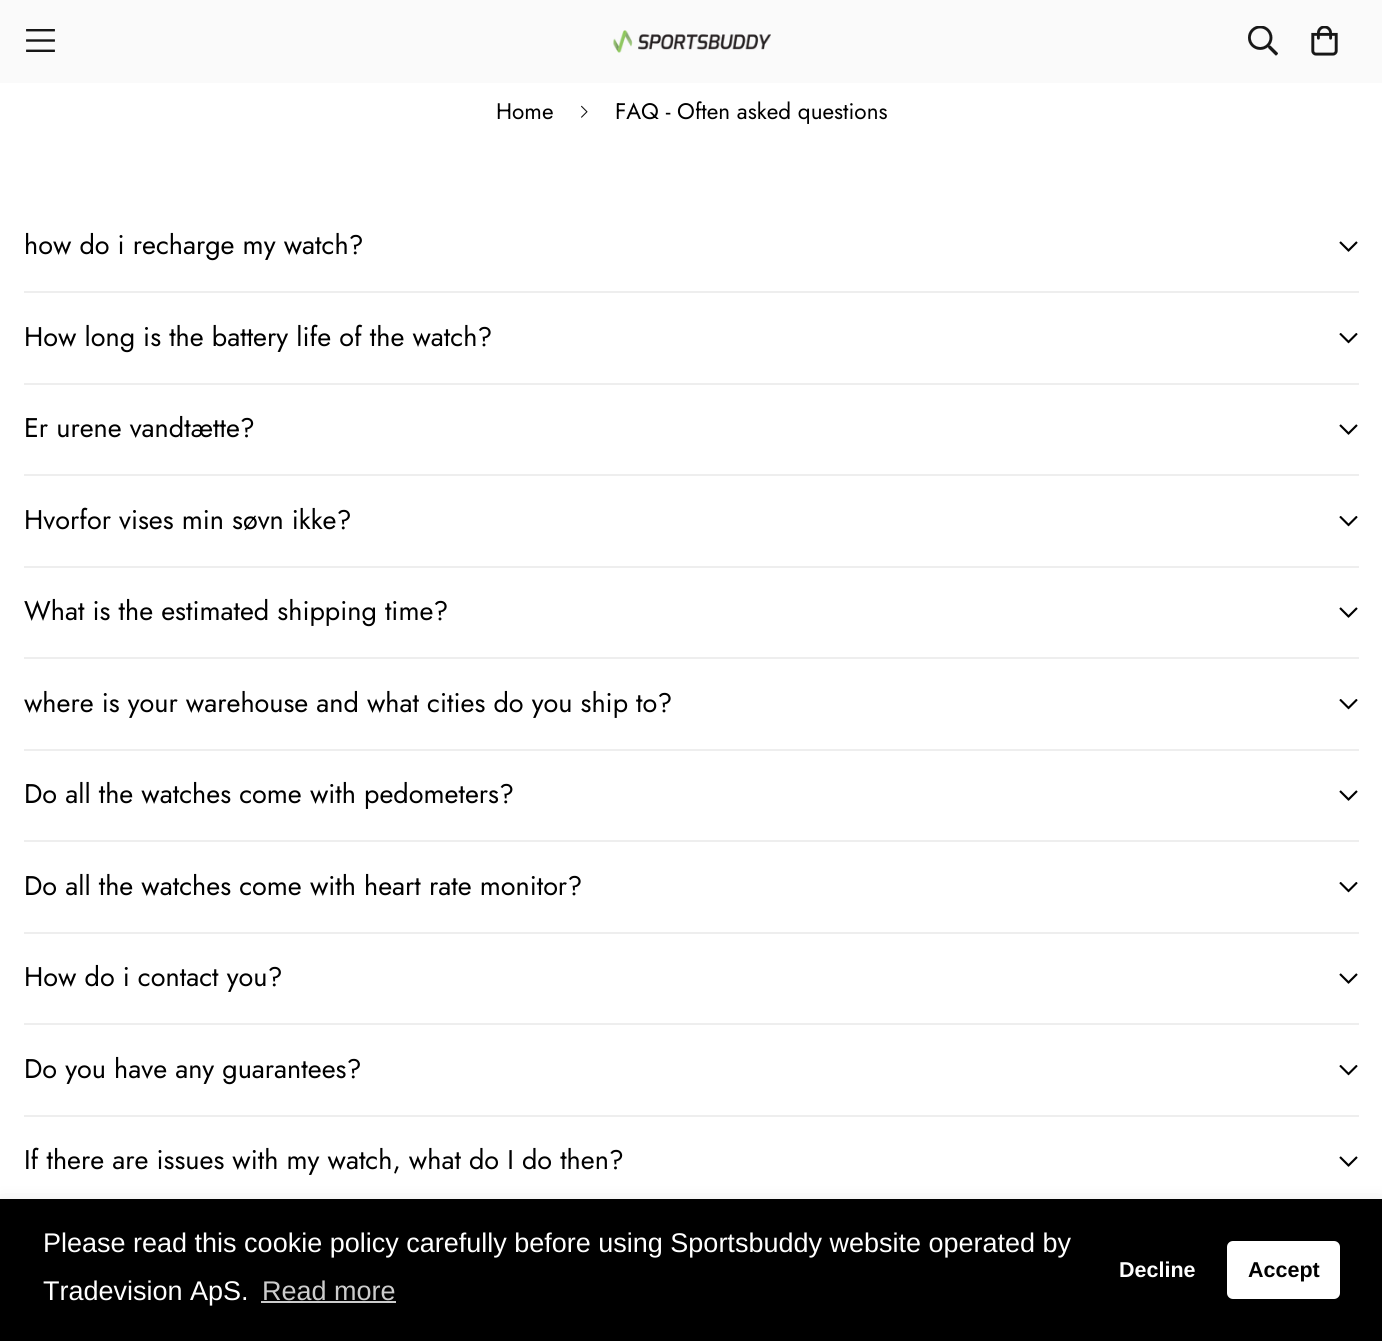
#include <cairo.h>
#include <math.h>
#include <stddef.h>

static cairo_t *c;
static void C(unsigned color){cairo_set_source_rgb(c, (color >> 16) / 255.0, (color >> 8 & 255) / 255.0, (color & 255) / 255.0);}
static void F(const char *family, double size, int italic, int bold){cairo_select_font_face(c, family, italic ? CAIRO_FONT_SLANT_ITALIC : CAIRO_FONT_SLANT_NORMAL,bold ? CAIRO_FONT_WEIGHT_BOLD : CAIRO_FONT_WEIGHT_NORMAL);cairo_set_font_size(c, size);}
static void T(double x, double y, const char *s){cairo_move_to(c, x, y);cairo_show_text(c, s);}
static void R(double x, double y, double w, double h){cairo_rectangle(c, x, y, w, h);cairo_fill(c);}
static void Q(double x, double y, double w, double h, double r){cairo_new_sub_path(c);cairo_arc(c, x + w - r, y + h - r, r, 0, M_PI / 2);cairo_arc(c, x + r, y + h - r, r, M_PI / 2, M_PI);cairo_arc(c, x + r, y + r, r, M_PI, 1.5 * M_PI);cairo_arc(c, x + w - r, y + r, r, 1.5 * M_PI, 2 * M_PI);cairo_close_path(c);}
static void S(double x, double y, double w, double h, double r, double blur, double alpha){cairo_push_group_with_content(c, CAIRO_CONTENT_ALPHA);cairo_set_operator(c, CAIRO_OPERATOR_SOURCE);for (int i = 15; i >= -15 && fmin(w, h) + blur * i / 3 > 0; i -= 2) {double e = blur * i / 6;cairo_set_source_rgba(c, 0, 0, 0, alpha * erfc((i - 1) / 8.5) / 2);Q(x - e, y - e, w + 2 * e, h + 2 * e, fmax(0, fmin(r + e + blur * .6, fmin(w, h) / 2 + e)));cairo_fill(c);}cairo_pattern_t *soft = cairo_pop_group(c);cairo_mask(c, soft);cairo_pattern_destroy(soft);}
static void I(const char *path, double x, double y, double w, double h){cairo_surface_t *image = cairo_image_surface_create_from_png(path);cairo_save(c);cairo_set_source_surface(c, image, x, y);cairo_rectangle(c, x, y, w, h);cairo_fill(c);cairo_restore(c);cairo_surface_destroy(image);}
int main(void) {
cairo_surface_t *surface = cairo_image_surface_create(CAIRO_FORMAT_RGB24, 1382, 1341);
c = cairo_create(surface);
cairo_font_options_t *options = cairo_font_options_create();
cairo_font_options_set_hint_metrics(options, CAIRO_HINT_METRICS_OFF);
cairo_font_options_set_hint_style(options, CAIRO_HINT_STYLE_NONE);
cairo_set_font_options(c, options);
cairo_set_miter_limit(c, 4);
C(0xffffff);
cairo_paint(c);
C(0xfafafa);
R(0,0,1382,83);
I("1.png",26,29,29,23);
I("2.png",613,30,158,23);
I("3.png",1248,26,30,30);
I("4.png",1311,26,27,30);
F("Jost",22.5,0,0);
C(0x000000);
T(496,119,"Home");
I("5.png",581,105,7,13);
T(615,119,"FAQ - Often asked questions");
C(0xeeeeee);
R(24,291,1335,2);
F("Jost",27,0,0);
C(0x000000);
T(24,254,"how do i recharge my watch?");
I("6.png",1339,241,19,11);
C(0xeeeeee);
R(24,383,1335,2);
C(0x000000);
T(24,346,"How long is the battery life of the watch?");
I("7.png",1339,333,19,11);
C(0xeeeeee);
R(24,474,1335,2);
C(0x000000);
T(24,437,"Er urene vandtætte?");
I("6.png",1339,424,19,11);
C(0xeeeeee);
R(24,566,1335,2);
C(0x000000);
T(24,529,"Hvorfor vises min søvn ikke?");
I("7.png",1339,516,19,11);
C(0xeeeeee);
R(24,657,1335,2);
C(0x000000);
T(24,620,"What is the estimated shipping time?");
I("6.png",1339,607,19,11);
C(0xeeeeee);
R(24,749,1335,2);
C(0x000000);
T(24,712,"where is your warehouse and what cities do you ship to?");
I("7.png",1339,699,19,11);
C(0xeeeeee);
R(24,840,1335,2);
C(0x000000);
T(24,803,"Do all the watches come with pedometers?");
I("6.png",1339,790,19,11);
C(0xeeeeee);
R(24,932,1335,2);
C(0x000000);
T(24,895,"Do all the watches come with heart rate monitor?");
I("7.png",1339,882,19,11);
C(0xeeeeee);
R(24,1023,1335,2);
C(0x000000);
T(24,986,"How do i contact you?");
I("6.png",1339,973,19,11);
C(0xeeeeee);
R(24,1115,1335,2);
C(0x000000);
T(24,1078,"Do you have any guarantees?");
I("7.png",1339,1065,19,11);
T(24,1169,"If there are issues with my watch, what do I do then?");
I("6.png",1339,1156,19,11);
C(0x000000);
S(0,1206,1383,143,0,11,.15);
C(0x000000);
R(0,1199,1382,142);
F("Liberation Sans",27,0,0);
C(0xffffff);
T(43,1252,"Please read this cookie policy carefully before using Sportsbuddy website operated by");
T(43,1300,"Tradevision ApS.");
C(0xcccccc);
T(262,1300,"Read more");
R(261,1301,135,2);
F("Liberation Sans",21.5,0,1);
C(0xffffff);
T(1119,1277,"Decline");
Q(1227,1241,113,58,6);
cairo_fill(c);
C(0x000000);
T(1248,1277,"Accept");
cairo_surface_write_to_png(surface, "o.png");
cairo_font_options_destroy(options);
cairo_destroy(c);
cairo_surface_destroy(surface);
return 0;
}
